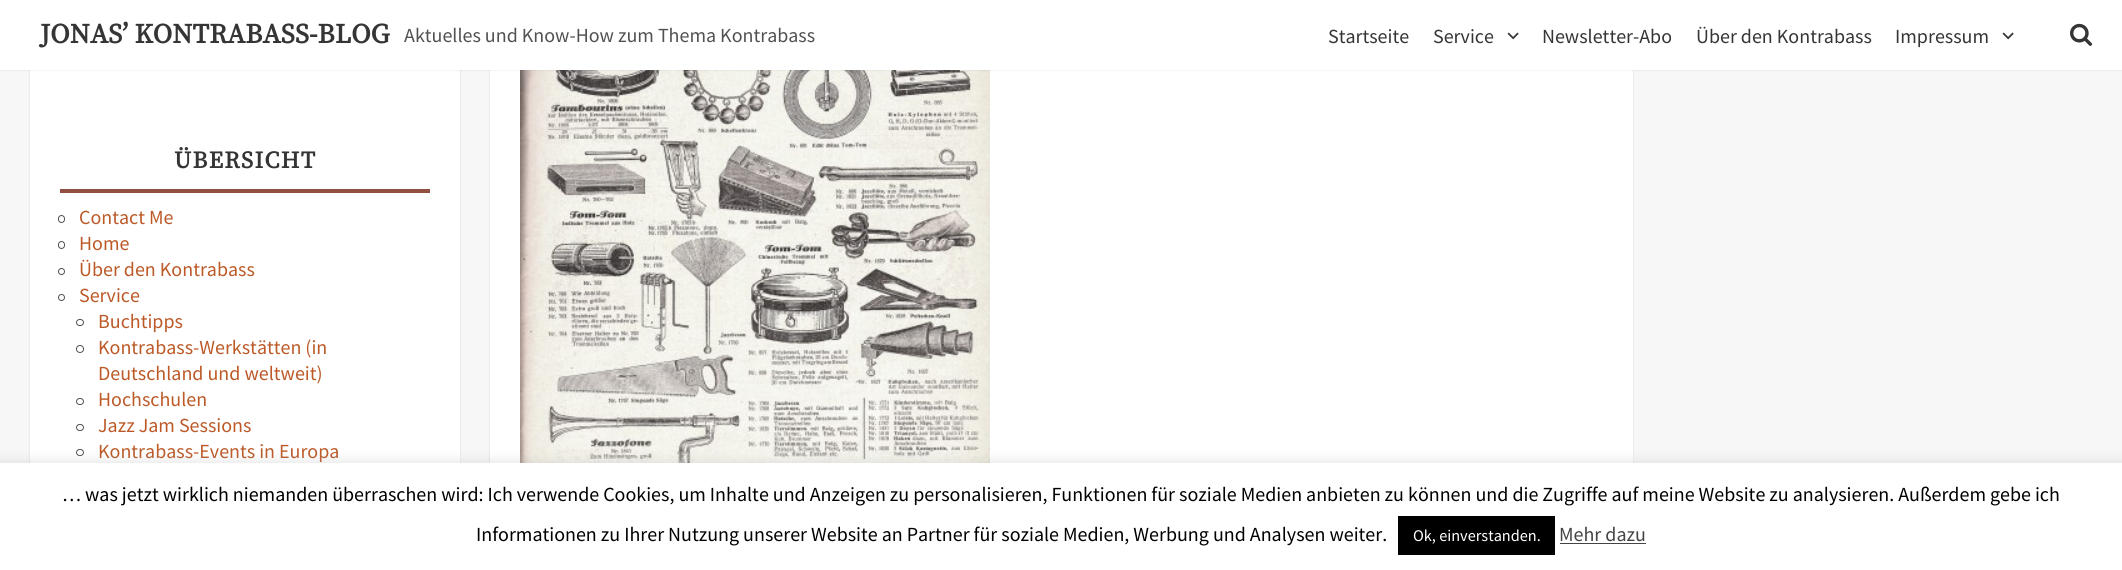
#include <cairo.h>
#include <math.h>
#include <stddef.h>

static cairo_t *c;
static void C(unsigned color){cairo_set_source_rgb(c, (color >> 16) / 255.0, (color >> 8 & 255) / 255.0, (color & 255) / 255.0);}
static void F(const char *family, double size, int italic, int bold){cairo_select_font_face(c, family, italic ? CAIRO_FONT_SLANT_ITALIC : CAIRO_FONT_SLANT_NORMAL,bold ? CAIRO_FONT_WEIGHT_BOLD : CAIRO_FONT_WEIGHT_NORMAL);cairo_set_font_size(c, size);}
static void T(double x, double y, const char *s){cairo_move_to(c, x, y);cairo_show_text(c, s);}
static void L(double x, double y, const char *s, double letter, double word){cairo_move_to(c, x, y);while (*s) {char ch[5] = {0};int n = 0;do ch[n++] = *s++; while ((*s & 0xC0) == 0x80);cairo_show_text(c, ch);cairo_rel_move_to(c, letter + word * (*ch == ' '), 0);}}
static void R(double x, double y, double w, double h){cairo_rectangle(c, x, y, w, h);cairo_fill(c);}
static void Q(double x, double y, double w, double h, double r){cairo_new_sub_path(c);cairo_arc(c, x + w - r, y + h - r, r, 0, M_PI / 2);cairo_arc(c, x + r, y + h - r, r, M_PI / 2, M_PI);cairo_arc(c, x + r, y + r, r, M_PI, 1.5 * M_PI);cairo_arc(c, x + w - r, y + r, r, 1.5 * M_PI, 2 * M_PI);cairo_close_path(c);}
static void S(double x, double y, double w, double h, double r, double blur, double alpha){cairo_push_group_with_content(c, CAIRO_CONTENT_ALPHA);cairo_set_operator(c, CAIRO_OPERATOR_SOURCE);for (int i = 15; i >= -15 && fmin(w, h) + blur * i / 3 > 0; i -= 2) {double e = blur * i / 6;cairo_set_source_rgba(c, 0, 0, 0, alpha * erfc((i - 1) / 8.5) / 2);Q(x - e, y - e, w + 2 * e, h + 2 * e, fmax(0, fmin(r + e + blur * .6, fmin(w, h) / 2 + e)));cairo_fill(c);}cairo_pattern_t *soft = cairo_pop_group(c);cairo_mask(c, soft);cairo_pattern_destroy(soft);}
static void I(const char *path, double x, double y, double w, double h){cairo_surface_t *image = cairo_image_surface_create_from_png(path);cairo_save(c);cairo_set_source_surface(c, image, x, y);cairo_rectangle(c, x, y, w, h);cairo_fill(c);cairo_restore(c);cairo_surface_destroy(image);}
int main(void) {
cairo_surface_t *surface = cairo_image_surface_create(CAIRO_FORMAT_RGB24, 2122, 570);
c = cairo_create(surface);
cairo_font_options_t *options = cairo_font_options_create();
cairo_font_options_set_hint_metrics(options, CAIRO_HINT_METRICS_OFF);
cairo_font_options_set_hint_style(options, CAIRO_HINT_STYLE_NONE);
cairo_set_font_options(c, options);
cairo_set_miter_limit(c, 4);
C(0xf7f7f7);
cairo_paint(c);
C(0x323232);
S(30,-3,430,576,0,1,.15);
C(0xffffff);
R(30,70,430,393);
C(0x323232);
S(490,-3,1143,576,0,1,.15);
C(0xffffff);
R(490,70,1143,393);
I("3.png",520,70,470,393);
C(0x323232);
S(0,0,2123,70,0,1,.15);
C(0xffffff);
R(0,0,2122,70);
F("Source Serif Pro",27.5,0,1);
C(0x353535);
T(40,43,"JONAS’ KONTRABASS-BLOG");
F("Source Sans Pro",20,0,0);
C(0x515151);
T(404,42,"Aktuelles und Know-How zum Thema Kontrabass");
C(0x353535);
T(1328,43,"Startseite");
T(1433,43,"Service");
I("1.png",1507,32,12,8);
T(1542,43,"Newsletter-Abo");
T(1696,43,"Über den Kontrabass");
T(1895,43,"Impressum");
I("1.png",2002,32,12,8);
I("2.png",2070,23,22,23);
C(0x914f42);
R(60,189,370,4);
F("Source Serif Pro",23.75,0,1);
C(0x353535);
L(174,168,"ÜBERSICHT",1.25,0);
Q(58.5,215.5,6,7,3);
C(0x515151);
cairo_set_line_width(c,1);
cairo_stroke(c);
F("Source Sans Pro",20,0,0);
C(0xbc5927);
T(79,224,"Contact Me");
Q(58.5,241.5,6,7,3);
C(0x515151);
cairo_stroke(c);
C(0xbc5927);
T(79,250,"Home");
cairo_new_path(c);
cairo_arc(c,61.5,271.5,3,0,2 * M_PI);
C(0x515151);
cairo_stroke(c);
C(0xbc5927);
T(79,276,"Über den Kontrabass");
cairo_new_path(c);
cairo_arc(c,61.5,297.5,3,0,2 * M_PI);
C(0x515151);
cairo_stroke(c);
C(0xbc5927);
T(79,302,"Service");
Q(76.5,319.5,7,6,3);
C(0x515151);
cairo_stroke(c);
C(0xbc5927);
T(98,328,"Buchtipps");
cairo_new_path(c);
cairo_arc(c,80,349,3.5,0,2 * M_PI);
C(0x515151);
cairo_stroke(c);
C(0xbc5927);
T(98,354,"Kontrabass-Werkstätten (in");
T(98,380,"Deutschland und weltweit)");
Q(76.5,398.5,7,6,3);
C(0x515151);
cairo_stroke(c);
C(0xbc5927);
T(98,406,"Hochschulen");
Q(76.5,424.5,7,6,3);
C(0x515151);
cairo_stroke(c);
C(0xbc5927);
T(98,432,"Jazz Jam Sessions");
Q(76.5,449.5,7,6,3);
C(0x515151);
cairo_stroke(c);
C(0xbc5927);
T(98,458,"Kontrabass-Events in Europa");
C(0xacabab);
S(0,461,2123,108,0,6,.3);
C(0xffffff);
R(0,463,2122,107);
C(0x000000);
T(62,501,"… was jetzt wirklich niemanden überraschen wird: Ich verwende Cookies, um Inhalte und Anzeigen zu personalisieren, Funktionen für soziale Medien anbieten zu können und die Zugriffe auf meine Website zu analysieren. Außerdem gebe ich");
T(476,541,"Informationen zu Ihrer Nutzung unserer Website an Partner für soziale Medien, Werbung und Analysen weiter.");
R(1398,516,157,39);
F("Source Sans Pro",16.25,0,0);
C(0xffffff);
T(1413,541,"Ok, einverstanden.");
F("Source Sans Pro",20,0,0);
C(0x444444);
T(1559,541,"Mehr dazu");
R(1560,543,86,1);
cairo_surface_write_to_png(surface, "o.png");
cairo_font_options_destroy(options);
cairo_destroy(c);
cairo_surface_destroy(surface);
return 0;
}
